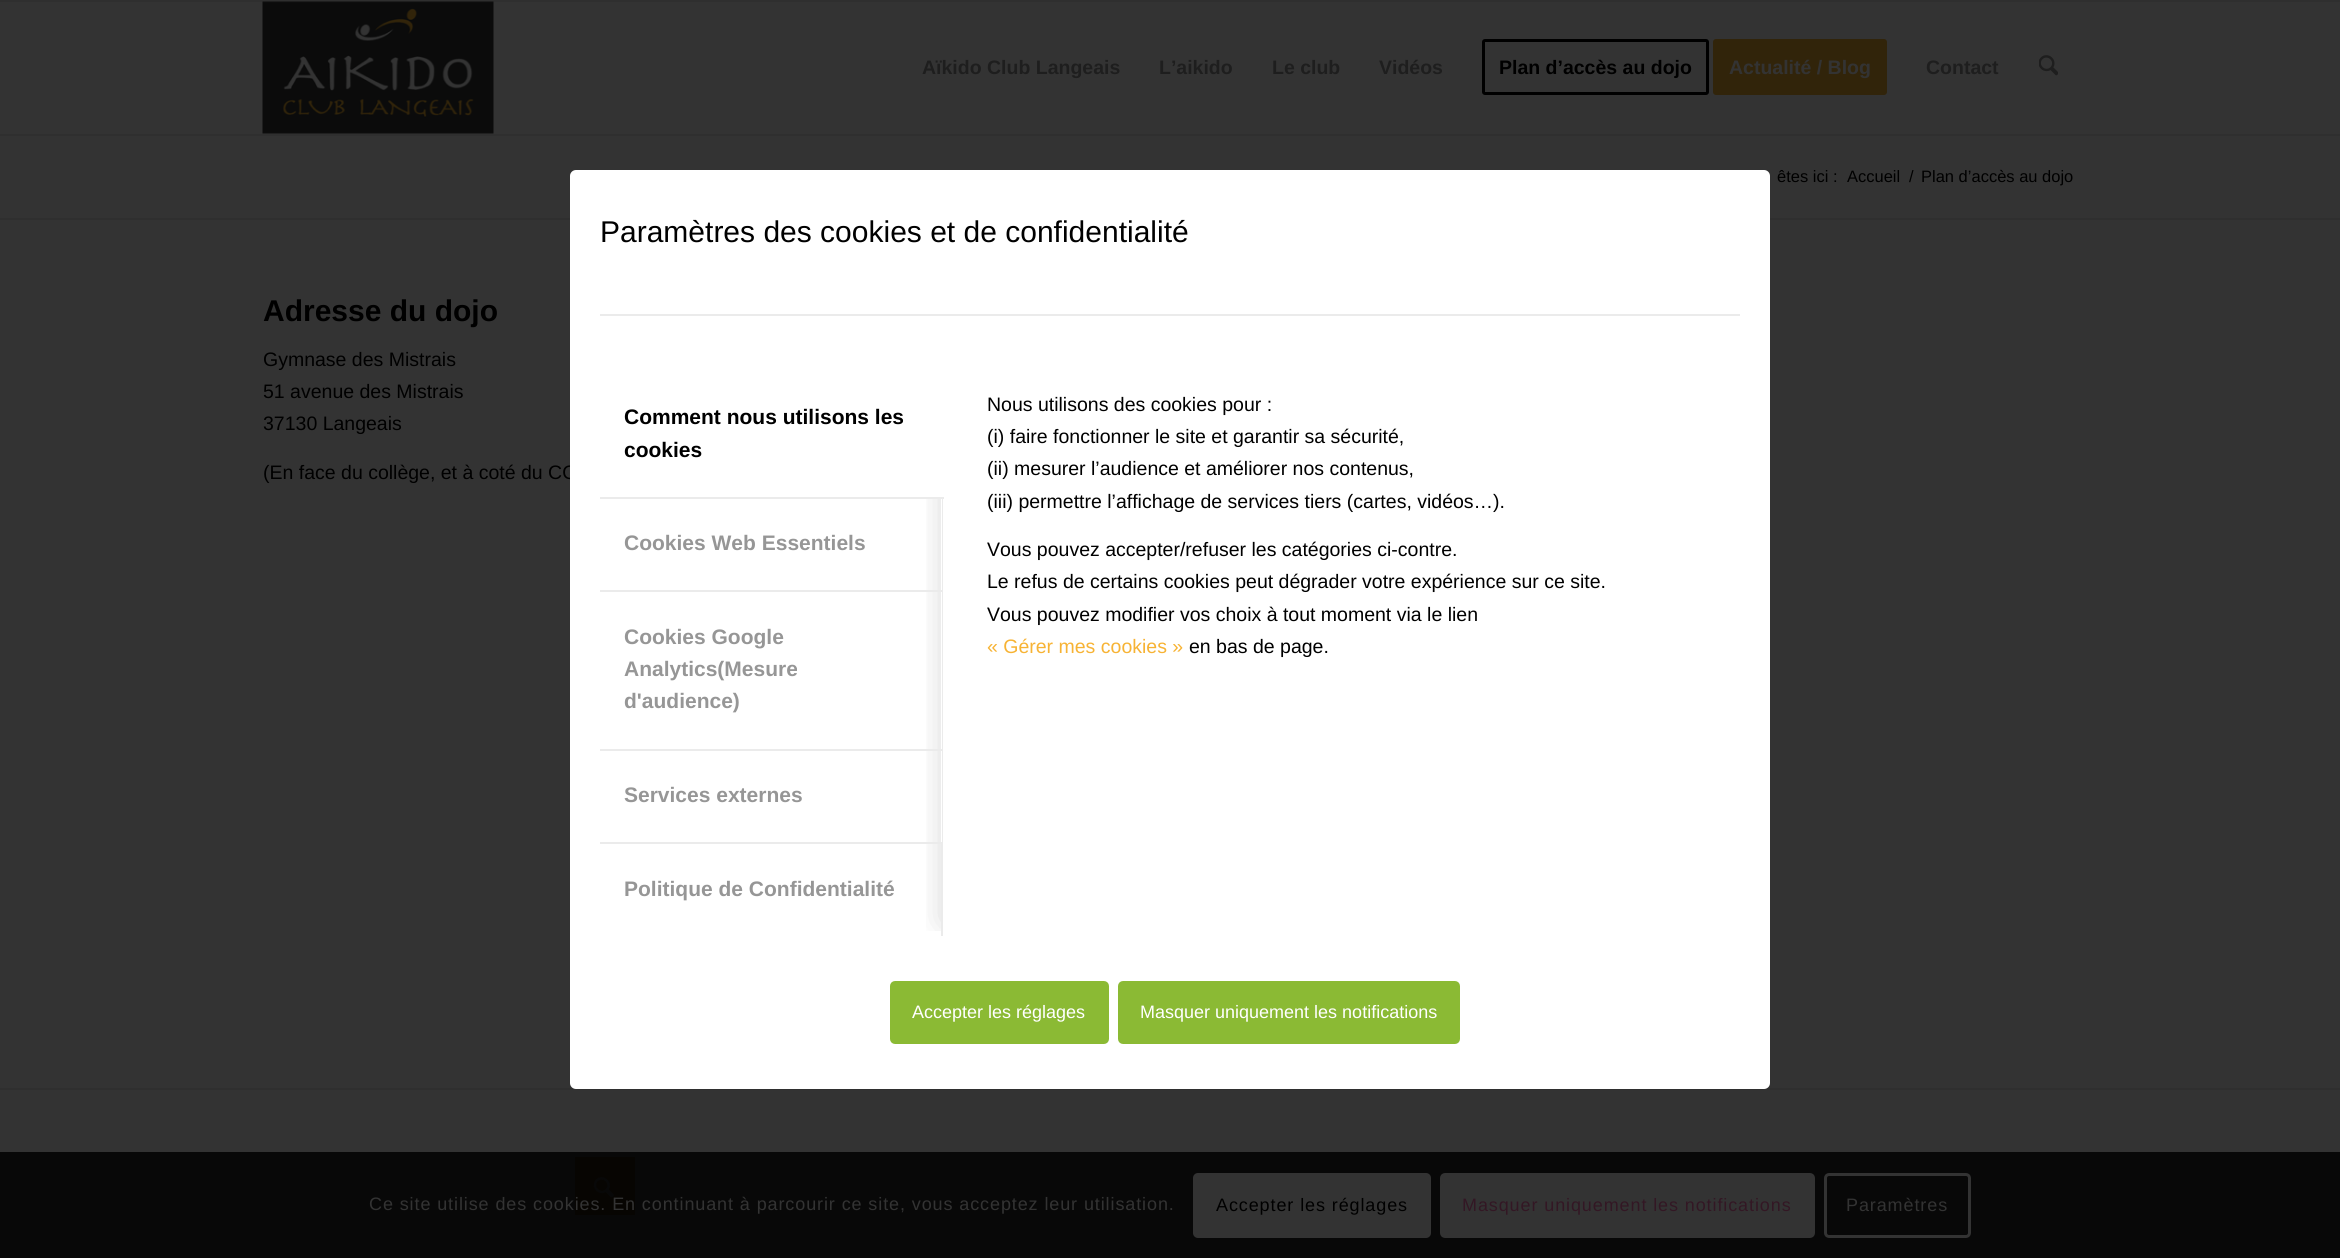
#include <cairo.h>
#include <math.h>
#include <stddef.h>

static cairo_t *c;
static void C(unsigned color){cairo_set_source_rgb(c, (color >> 16) / 255.0, (color >> 8 & 255) / 255.0, (color & 255) / 255.0);}
static void F(const char *family, double size, int italic, int bold){cairo_select_font_face(c, family, italic ? CAIRO_FONT_SLANT_ITALIC : CAIRO_FONT_SLANT_NORMAL,bold ? CAIRO_FONT_WEIGHT_BOLD : CAIRO_FONT_WEIGHT_NORMAL);cairo_set_font_size(c, size);}
static void T(double x, double y, const char *s){cairo_move_to(c, x, y);cairo_show_text(c, s);}
static void L(double x, double y, const char *s, double letter, double word){cairo_move_to(c, x, y);while (*s) {char ch[5] = {0};int n = 0;do ch[n++] = *s++; while ((*s & 0xC0) == 0x80);cairo_show_text(c, ch);cairo_rel_move_to(c, letter + word * (*ch == ' '), 0);}}
static void R(double x, double y, double w, double h){cairo_rectangle(c, x, y, w, h);cairo_fill(c);}
static void Q(double x, double y, double w, double h, double r){cairo_new_sub_path(c);cairo_arc(c, x + w - r, y + h - r, r, 0, M_PI / 2);cairo_arc(c, x + r, y + h - r, r, M_PI / 2, M_PI);cairo_arc(c, x + r, y + r, r, M_PI, 1.5 * M_PI);cairo_arc(c, x + w - r, y + r, r, 1.5 * M_PI, 2 * M_PI);cairo_close_path(c);}
static void S(double x, double y, double w, double h, double r, double blur, double alpha){cairo_push_group_with_content(c, CAIRO_CONTENT_ALPHA);cairo_set_operator(c, CAIRO_OPERATOR_SOURCE);for (int i = 15; i >= -15 && fmin(w, h) + blur * i / 3 > 0; i -= 2) {double e = blur * i / 6;cairo_set_source_rgba(c, 0, 0, 0, alpha * erfc((i - 1) / 8.5) / 2);Q(x - e, y - e, w + 2 * e, h + 2 * e, fmax(0, fmin(r + e + blur * .6, fmin(w, h) / 2 + e)));cairo_fill(c);}cairo_pattern_t *soft = cairo_pop_group(c);cairo_mask(c, soft);cairo_pattern_destroy(soft);}
static void I(const char *path, double x, double y, double w, double h){cairo_surface_t *image = cairo_image_surface_create_from_png(path);cairo_save(c);cairo_set_source_surface(c, image, x, y);cairo_rectangle(c, x, y, w, h);cairo_fill(c);cairo_restore(c);cairo_surface_destroy(image);}
int main(void) {
cairo_surface_t *surface = cairo_image_surface_create(CAIRO_FORMAT_RGB24, 2340, 1258);
c = cairo_create(surface);
cairo_font_options_t *options = cairo_font_options_create();
cairo_font_options_set_hint_metrics(options, CAIRO_HINT_METRICS_OFF);
cairo_font_options_set_hint_style(options, CAIRO_HINT_STYLE_NONE);
cairo_set_font_options(c, options);
cairo_set_miter_limit(c, 4);
C(0x333333);
cairo_paint(c);
C(0x080808);
R(0,1152,2340,106);
C(0x2f2f2f);
R(0,0,2340,2);
R(0,134,2340,2);
I("1.png",262,1,232,133);
F("Liberation Sans",19.5,0,1);
C(0x1e1e1e);
T(922,74,"Aïkido Club Langeais");
T(1159,74,"L’aikido");
T(1272,74,"Le club");
T(1379,74,"Vidéos");
Q(1483.5,40.5,224,53,1.5);
C(0x000000);
cairo_set_line_width(c,3);
cairo_stroke(c);
T(1499,74,"Plan d’accès au dojo");
C(0x31240a);
Q(1714.5,40.5,171,53,1.5);
cairo_fill_preserve(c);
cairo_stroke(c);
C(0x333333);
T(1729,74,"Actualité / Blog");
C(0x1e1e1e);
T(1926,74,"Contact");
I("2.png",2039,55,19,21);
F("Liberation Sans",16.5,0,0);
C(0x000000);
T(1777,182,"êtes ici :");
T(1847,182,"Accueil");
T(1909,182,"/");
T(1921,182,"Plan d’accès au dojo");
C(0x2f2f2f);
R(0,218,2340,2);
F("Liberation Sans",30,0,1);
C(0x000000);
T(263,321,"Adresse du dojo");
F("Liberation Sans",19.5,0,0);
T(263,366,"Gymnase des Mistrais");
T(263,398,"51 avenue des Mistrais");
T(263,430,"37130 Langeais");
T(263,479,"(En face du collège, et à coté du CO");
C(0x2f2f2f);
R(0,1088,2340,2);
C(0x070502);
R(575,1157,60,58);
I("3.png",593,1177,21,21);
C(0xffffff);
Q(570,170,1200,919,6);
cairo_fill(c);
F("Liberation Sans",30,0,0);
C(0x000000);
T(600,242,"Paramètres des cookies et de confidentialité");
C(0xebebeb);
R(600,314,1140,2);
cairo_save(c);
cairo_rectangle(c,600,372,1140,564);
cairo_clip(c);
cairo_rectangle(c,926,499,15,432);
cairo_clip(c);
C(0x000000);
S(945,387,768,534,0,15,.2);
cairo_restore(c);
R(942,497,1,346);
C(0xffffff);
cairo_new_path(c);
cairo_move_to(c,603,372);
cairo_line_to(c,944,372);
cairo_line_to(c,944,498);
cairo_line_to(c,600,498);
cairo_line_to(c,600,375);
cairo_curve_to(c,600,373.5,601.5,372,603,372);
cairo_close_path(c);
cairo_fill(c);
C(0xebebeb);
R(600,497,344,2);
F("Liberation Sans",21,0,1);
C(0x000000);
T(624,424,"Comment nous utilisons les");
T(624,457,"cookies");
C(0xebebeb);
R(600,590,342,2);
C(0x969696);
T(624,550,"Cookies Web Essentiels");
C(0xebebeb);
R(600,749,342,2);
C(0x969696);
T(624,644,"Cookies Google");
T(624,676,"Analytics(Mesure");
T(624,708,"d'audience)");
C(0xebebeb);
R(600,842,342,2);
C(0x969696);
T(624,802,"Services externes");
C(0xebebeb);
R(941,842,2,94);
C(0x969696);
T(624,896,"Politique de Confidentialité");
F("Liberation Sans",19.5,0,0);
C(0x000000);
T(987,411,"Nous utilisons des cookies pour :");
T(987,443,"(i) faire fonctionner le site et garantir sa sécurité,");
T(987,475,"(ii) mesurer l’audience et améliorer nos contenus,");
T(987,508,"(iii) permettre l’affichage de services tiers (cartes, vidéos…).");
T(987,556,"Vous pouvez accepter/refuser les catégories ci-contre.");
T(987,588,"Le refus de certains cookies peut dégrader votre expérience sur ce site.");
T(987,621,"Vous pouvez modifier vos choix à tout moment via le lien");
C(0xf7b334);
T(987,653,"« Gérer mes cookies »");
C(0x000000);
T(1189,653,"en bas de page.");
C(0x8bba34);
Q(891.5,982.5,216,60,3.5);
cairo_fill_preserve(c);
cairo_stroke(c);
F("Liberation Sans",18,0,0);
C(0xffffff);
T(912,1018,"Accepter les réglages");
C(0x8bba34);
Q(1119.5,982.5,339,60,3.5);
cairo_fill_preserve(c);
cairo_stroke(c);
C(0xffffff);
T(1140,1018,"Masquer uniquement les notifications");
C(0x333333);
L(369,1210,"Ce site utilise des cookies. En continuant à parcourir ce site, vous acceptez leur utilisation.",.9,0);
Q(1193,1173,238,65,5);
cairo_fill(c);
C(0x000000);
L(1216,1211,"Accepter les réglages",.9,0);
C(0x333333);
Q(1441.5,1174.5,372,62,3.5);
cairo_fill_preserve(c);
cairo_stroke(c);
C(0x331724);
L(1462,1211,"Masquer uniquement les notifications",.9,0);
Q(1825.5,1174.5,144,62,3.5);
C(0x333333);
cairo_stroke(c);
L(1846,1211,"Paramètres",.9,0);
cairo_surface_write_to_png(surface, "o.png");
cairo_font_options_destroy(options);
cairo_destroy(c);
cairo_surface_destroy(surface);
return 0;
}
